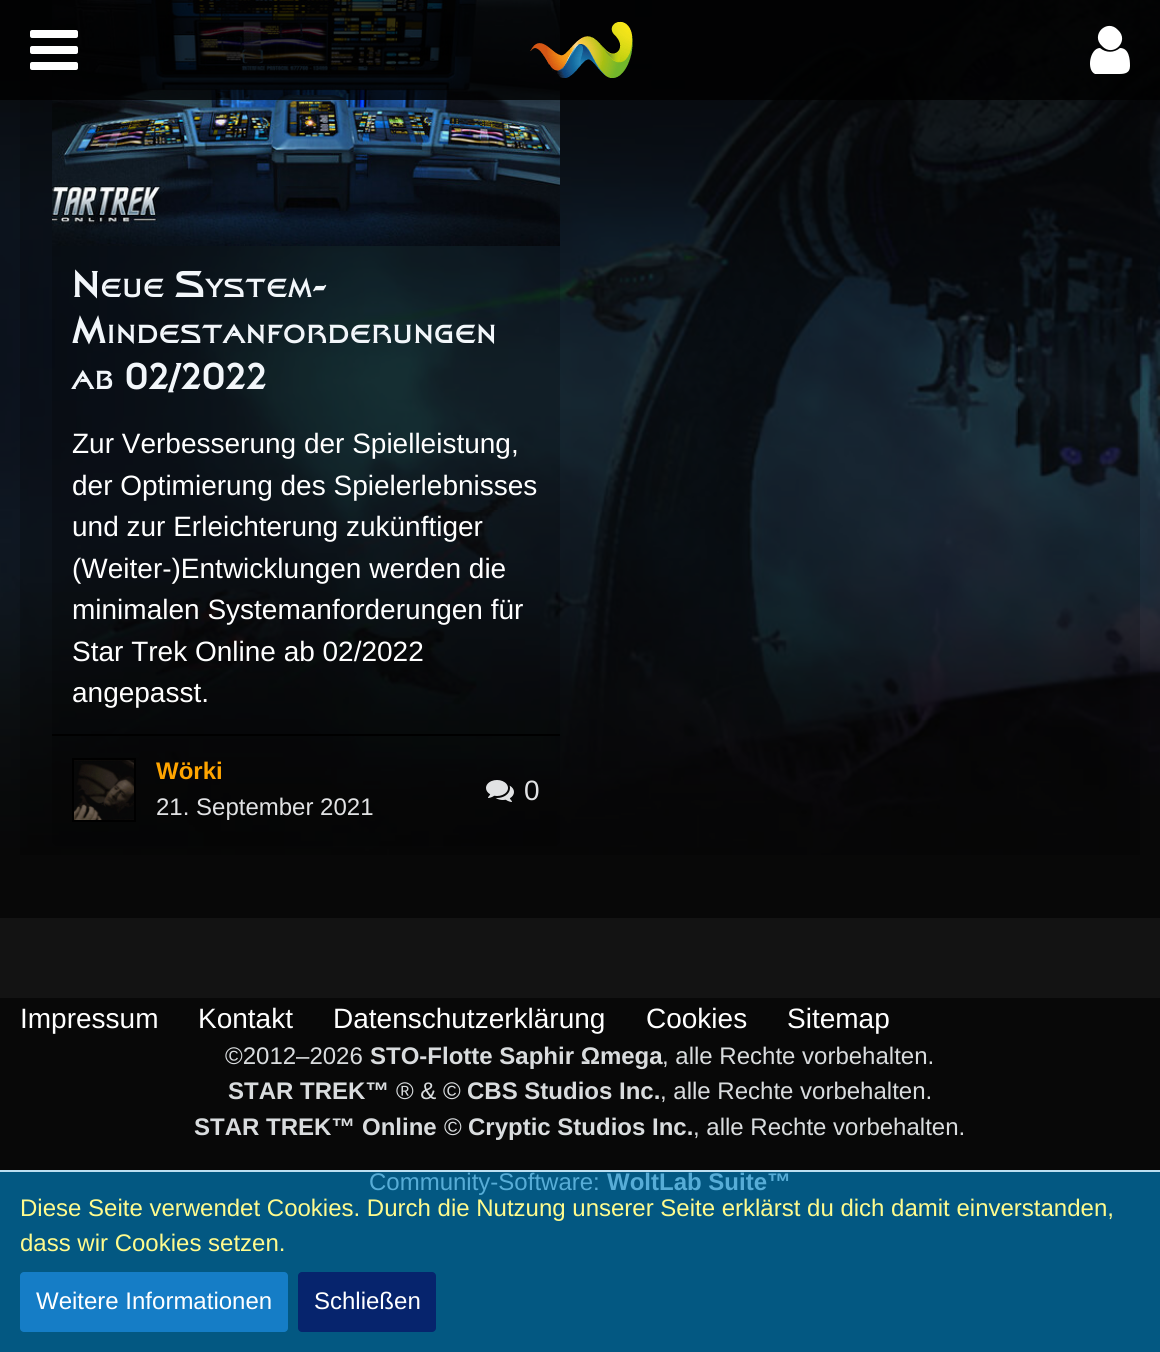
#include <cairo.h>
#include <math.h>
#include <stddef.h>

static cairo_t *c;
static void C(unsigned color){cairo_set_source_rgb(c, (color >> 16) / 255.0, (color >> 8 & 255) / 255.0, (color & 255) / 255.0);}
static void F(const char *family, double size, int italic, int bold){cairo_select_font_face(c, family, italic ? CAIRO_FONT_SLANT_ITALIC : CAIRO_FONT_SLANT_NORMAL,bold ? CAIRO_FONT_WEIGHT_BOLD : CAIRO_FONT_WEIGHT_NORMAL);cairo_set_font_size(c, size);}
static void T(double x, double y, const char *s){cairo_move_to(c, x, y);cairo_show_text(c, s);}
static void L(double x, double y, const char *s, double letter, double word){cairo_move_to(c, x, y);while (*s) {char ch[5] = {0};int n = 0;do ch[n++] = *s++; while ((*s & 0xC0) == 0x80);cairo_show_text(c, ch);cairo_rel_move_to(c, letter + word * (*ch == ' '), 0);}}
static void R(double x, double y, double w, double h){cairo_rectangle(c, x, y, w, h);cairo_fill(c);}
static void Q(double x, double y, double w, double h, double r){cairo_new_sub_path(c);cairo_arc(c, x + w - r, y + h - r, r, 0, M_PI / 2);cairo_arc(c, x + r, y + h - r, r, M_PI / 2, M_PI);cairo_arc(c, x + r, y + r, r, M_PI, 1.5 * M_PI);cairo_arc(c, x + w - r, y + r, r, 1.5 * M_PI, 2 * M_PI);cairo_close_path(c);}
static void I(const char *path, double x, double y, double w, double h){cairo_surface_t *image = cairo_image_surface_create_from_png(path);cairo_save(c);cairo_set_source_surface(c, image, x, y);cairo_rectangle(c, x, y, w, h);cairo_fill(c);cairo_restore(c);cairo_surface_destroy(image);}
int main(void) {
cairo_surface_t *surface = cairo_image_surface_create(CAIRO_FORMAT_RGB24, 1160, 1352);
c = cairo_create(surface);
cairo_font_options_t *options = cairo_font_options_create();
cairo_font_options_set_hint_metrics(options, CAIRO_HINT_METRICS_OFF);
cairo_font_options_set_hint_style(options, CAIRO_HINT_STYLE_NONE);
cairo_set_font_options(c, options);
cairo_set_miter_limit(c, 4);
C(0x131313);
cairo_paint(c);
C(0x080808);
R(0,855,1160,63);
I("1.png",0,0,1160,855);
cairo_set_source_rgba(c,0,0,0,0.2);
Q(52,-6,508,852,6);
cairo_fill(c);
I("4.png",52,0,508,246);
cairo_set_source_rgba(c,0,0,0,0.8);
R(0,0,1160,100);
I("2.png",30,30,48,40);
C(0xffffff);
cairo_new_path(c);
cairo_move_to(c,1130,66);
cairo_curve_to(c,1130,73,1125,74,1119,74);
cairo_line_to(c,1095,74);
cairo_curve_to(c,1086,70,1090,48,1100,48);
cairo_curve_to(c,1106,53,1114,53,1120,48);
cairo_curve_to(c,1129,48,1130,59,1130,66);
cairo_close_path(c);
cairo_move_to(c,1118,30);
cairo_curve_to(c,1130,41,1113,58,1102,46);
cairo_curve_to(c,1090,35,1107,18,1118,30);
cairo_close_path(c);
cairo_fill(c);
I("3.png",530,21,103,57);
F("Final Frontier",36,0,1);
C(0xf2f6fa);
L(72,297,"N",1.75,0);
F("Final Frontier",25.25,0,1);
L(101,297,"EUE",1.75,0);
F("Final Frontier",36,0,1);
L(175,297,"S",1.75,0);
F("Final Frontier",25.25,0,1);
L(206,297,"YSTEM",1.75,0);
F("Final Frontier",36,0,1);
L(312,297,"-",1.75,0);
L(72,343,"M",1.75,0);
F("Final Frontier",25.25,0,1);
L(107,343,"INDESTANFORDERUNGEN",1.75,0);
L(72,389,"AB",1.75,0);
F("Final Frontier",36,0,1);
L(125,389,"02/2022",1.75,0);
F("Liberation Sans",28,0,0);
C(0xffffff);
T(72,453,"Zur Verbesserung der Spielleistung,");
T(72,495,"der Optimierung des Spielerlebnisses");
T(72,536,"und zur Erleichterung zukünftiger");
T(72,578,"(Weiter-)Entwicklungen werden die");
T(72,619,"minimalen Systemanforderungen für");
T(72,661,"Star Trek Online ab 02/2022");
T(72,702,"angepasst.");
C(0x000000);
R(52,734,508,2);
cairo_rectangle(c,73,759,62,62);
cairo_stroke(c);
I("5.png",74,760,60,60);
F("Liberation Sans",24,0,1);
C(0xffa500);
T(156,779,"Wörki");
F("Liberation Sans",24,0,0);
C(0xe1e2e4);
T(156,815,"21. September 2021");
I("6.png",486,780,28,22);
F("Liberation Sans",28,0,0);
T(524,800,"0");
C(0x080808);
R(0,998,1160,172);
C(0xffffff);
T(20,1028,"Impressum");
T(198,1028,"Kontakt");
T(333,1028,"Datenschutzerklärung");
T(646,1028,"Cookies");
T(787,1028,"Sitemap");
C(0x035882);
R(0,1172,1160,180);
F("Liberation Sans",24,0,0);
C(0xd9dcde);
T(225,1064,"©2012–2026");
F("Liberation Sans",24,0,1);
T(370,1064,"STO-Flotte Saphir Ωmega");
F("Liberation Sans",24,0,0);
T(662,1064,", alle Rechte vorbehalten.");
F("Liberation Sans",24,0,1);
T(228,1099,"STAR TREK™");
F("Liberation Sans",24,0,0);
T(396,1099,"® & ©");
F("Liberation Sans",24,0,1);
T(467,1099,"CBS Studios Inc.");
F("Liberation Sans",24,0,0);
T(660,1099,", alle Rechte vorbehalten.");
F("Liberation Sans",24,0,1);
T(194,1135,"STAR TREK™ Online");
F("Liberation Sans",24,0,0);
T(444,1135,"©");
F("Liberation Sans",24,0,1);
T(468,1135,"Cryptic Studios Inc.");
F("Liberation Sans",24,0,0);
T(693,1135,", alle Rechte vorbehalten.");
C(0x57add7);
T(369,1190,"Community-Software:");
F("Liberation Sans",24,0,1);
T(607,1190,"WoltLab Suite™");
C(0xbcdff1);
R(0,1170,1160,2);
F("Liberation Sans",24,0,0);
C(0xfffb8d);
T(20,1216,"Diese Seite verwendet Cookies. Durch die Nutzung unserer Seite erklärst du dich damit einverstanden,");
T(20,1251,"dass wir Cookies setzen.");
C(0x157dc6);
Q(20,1272,268,60,4);
cairo_fill(c);
C(0xffffff);
T(36,1309,"Weitere Informationen");
C(0x06246d);
Q(298,1272,138,60,4);
cairo_fill(c);
C(0xffffff);
T(314,1309,"Schließen");
cairo_surface_write_to_png(surface, "o.png");
cairo_font_options_destroy(options);
cairo_destroy(c);
cairo_surface_destroy(surface);
return 0;
}
